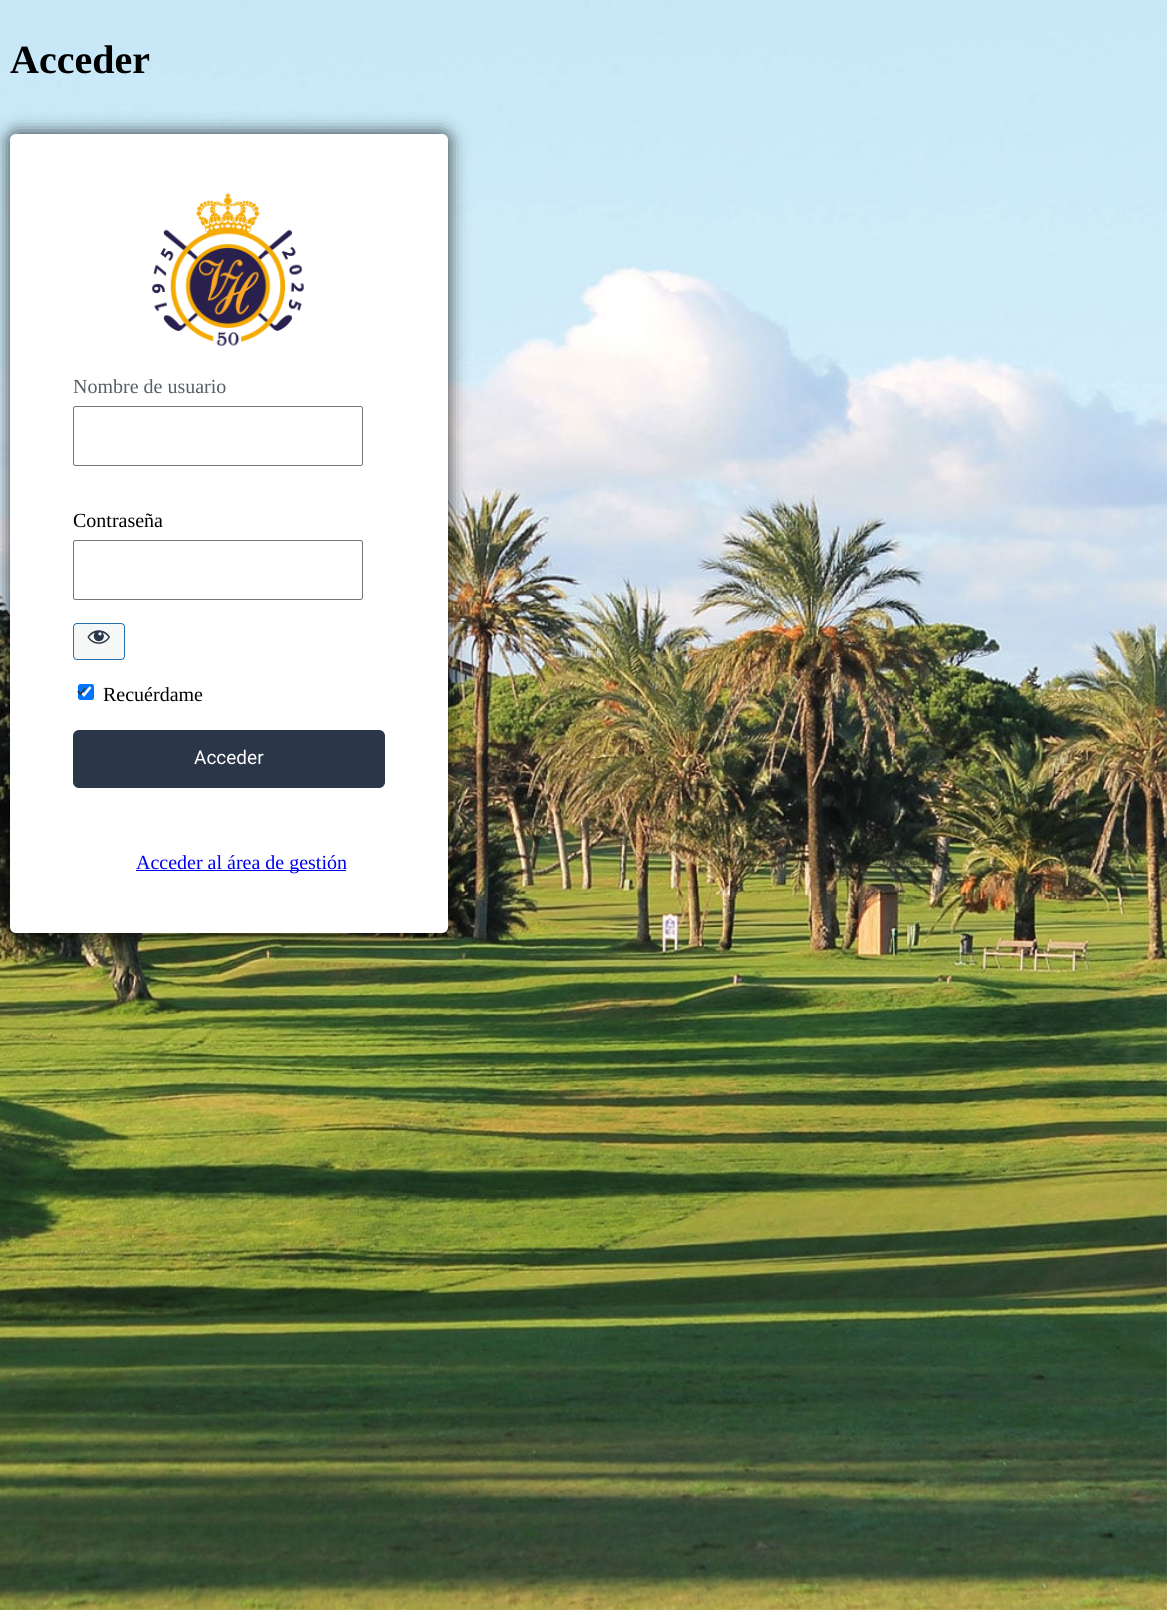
#include <cairo.h>
#include <math.h>
#include <stddef.h>

static cairo_t *c;
static void C(unsigned color){cairo_set_source_rgb(c, (color >> 16) / 255.0, (color >> 8 & 255) / 255.0, (color & 255) / 255.0);}
static void F(const char *family, double size, int italic, int bold){cairo_select_font_face(c, family, italic ? CAIRO_FONT_SLANT_ITALIC : CAIRO_FONT_SLANT_NORMAL,bold ? CAIRO_FONT_WEIGHT_BOLD : CAIRO_FONT_WEIGHT_NORMAL);cairo_set_font_size(c, size);}
static void T(double x, double y, const char *s){cairo_move_to(c, x, y);cairo_show_text(c, s);}
static void R(double x, double y, double w, double h){cairo_rectangle(c, x, y, w, h);cairo_fill(c);}
static void Q(double x, double y, double w, double h, double r){cairo_new_sub_path(c);cairo_arc(c, x + w - r, y + h - r, r, 0, M_PI / 2);cairo_arc(c, x + r, y + h - r, r, M_PI / 2, M_PI);cairo_arc(c, x + r, y + r, r, M_PI, 1.5 * M_PI);cairo_arc(c, x + w - r, y + r, r, 1.5 * M_PI, 2 * M_PI);cairo_close_path(c);}
static void S(double x, double y, double w, double h, double r, double blur, double alpha){cairo_push_group_with_content(c, CAIRO_CONTENT_ALPHA);cairo_set_operator(c, CAIRO_OPERATOR_SOURCE);for (int i = 15; i >= -15 && fmin(w, h) + blur * i / 3 > 0; i -= 2) {double e = blur * i / 6;cairo_set_source_rgba(c, 0, 0, 0, alpha * erfc((i - 1) / 8.5) / 2);Q(x - e, y - e, w + 2 * e, h + 2 * e, fmax(0, fmin(r + e + blur * .6, fmin(w, h) / 2 + e)));cairo_fill(c);}cairo_pattern_t *soft = cairo_pop_group(c);cairo_mask(c, soft);cairo_pattern_destroy(soft);}
static void I(const char *path, double x, double y, double w, double h){cairo_surface_t *image = cairo_image_surface_create_from_png(path);cairo_save(c);cairo_set_source_surface(c, image, x, y);cairo_rectangle(c, x, y, w, h);cairo_fill(c);cairo_restore(c);cairo_surface_destroy(image);}
int main(void) {
cairo_surface_t *surface = cairo_image_surface_create(CAIRO_FORMAT_RGB24, 1167, 1610);
c = cairo_create(surface);
cairo_font_options_t *options = cairo_font_options_create();
cairo_font_options_set_hint_metrics(options, CAIRO_HINT_METRICS_OFF);
cairo_font_options_set_hint_style(options, CAIRO_HINT_STYLE_NONE);
cairo_set_font_options(c, options);
cairo_set_miter_limit(c, 4);
C(0xffffff);
cairo_paint(c);
I("1.png",0,0,1167,1610);
F("Liberation Serif",40,0,1);
C(0x000000);
T(10,73,"Acceder");
C(0x000000);
S(10,134,438,799,6,9.5,.8);
C(0xffffff);
Q(10,134,438,799,6);
cairo_fill(c);
I("2.png",152,193,152,153);
F("Liberation Serif",20,0,0);
C(0x555d66);
T(73,393,"Nombre de usuario");
Q(73.5,406.5,289,59,2);
C(0x767676);
cairo_set_line_width(c,1);
cairo_stroke(c);
C(0x000000);
T(73,527,"Contraseña");
Q(73.5,540.5,289,59,2);
C(0x767676);
cairo_stroke(c);
C(0xf6f7f7);
Q(73.5,623.5,51,36,3.5);
cairo_fill_preserve(c);
C(0x2271b1);
cairo_stroke(c);
I("3.png",87,630,23,14);
C(0x0075ff);
Q(78,684,16,16,2.5);
cairo_fill(c);
cairo_new_path(c);
cairo_move_to(c,81,692);
cairo_line_to(c,84,695);
cairo_line_to(c,90.5,687);
C(0xffffff);
cairo_set_line_width(c,2.6);
cairo_stroke(c);
I("4.png",77,687,9,9);
C(0x000000);
T(103,701,"Recuérdame");
C(0x2b3749);
Q(73.5,730.5,311,57,5.5);
cairo_fill_preserve(c);
cairo_set_line_width(c,1);
cairo_stroke(c);
F("Roboto",19,0,0);
C(0xffffff);
T(194,764,"Acceder");
C(0x0000ee);
R(136,870,210,1);
F("Liberation Serif",20,0,0);
T(136,869,"Acceder al área de gestión");
cairo_surface_write_to_png(surface, "o.png");
cairo_font_options_destroy(options);
cairo_destroy(c);
cairo_surface_destroy(surface);
return 0;
}
